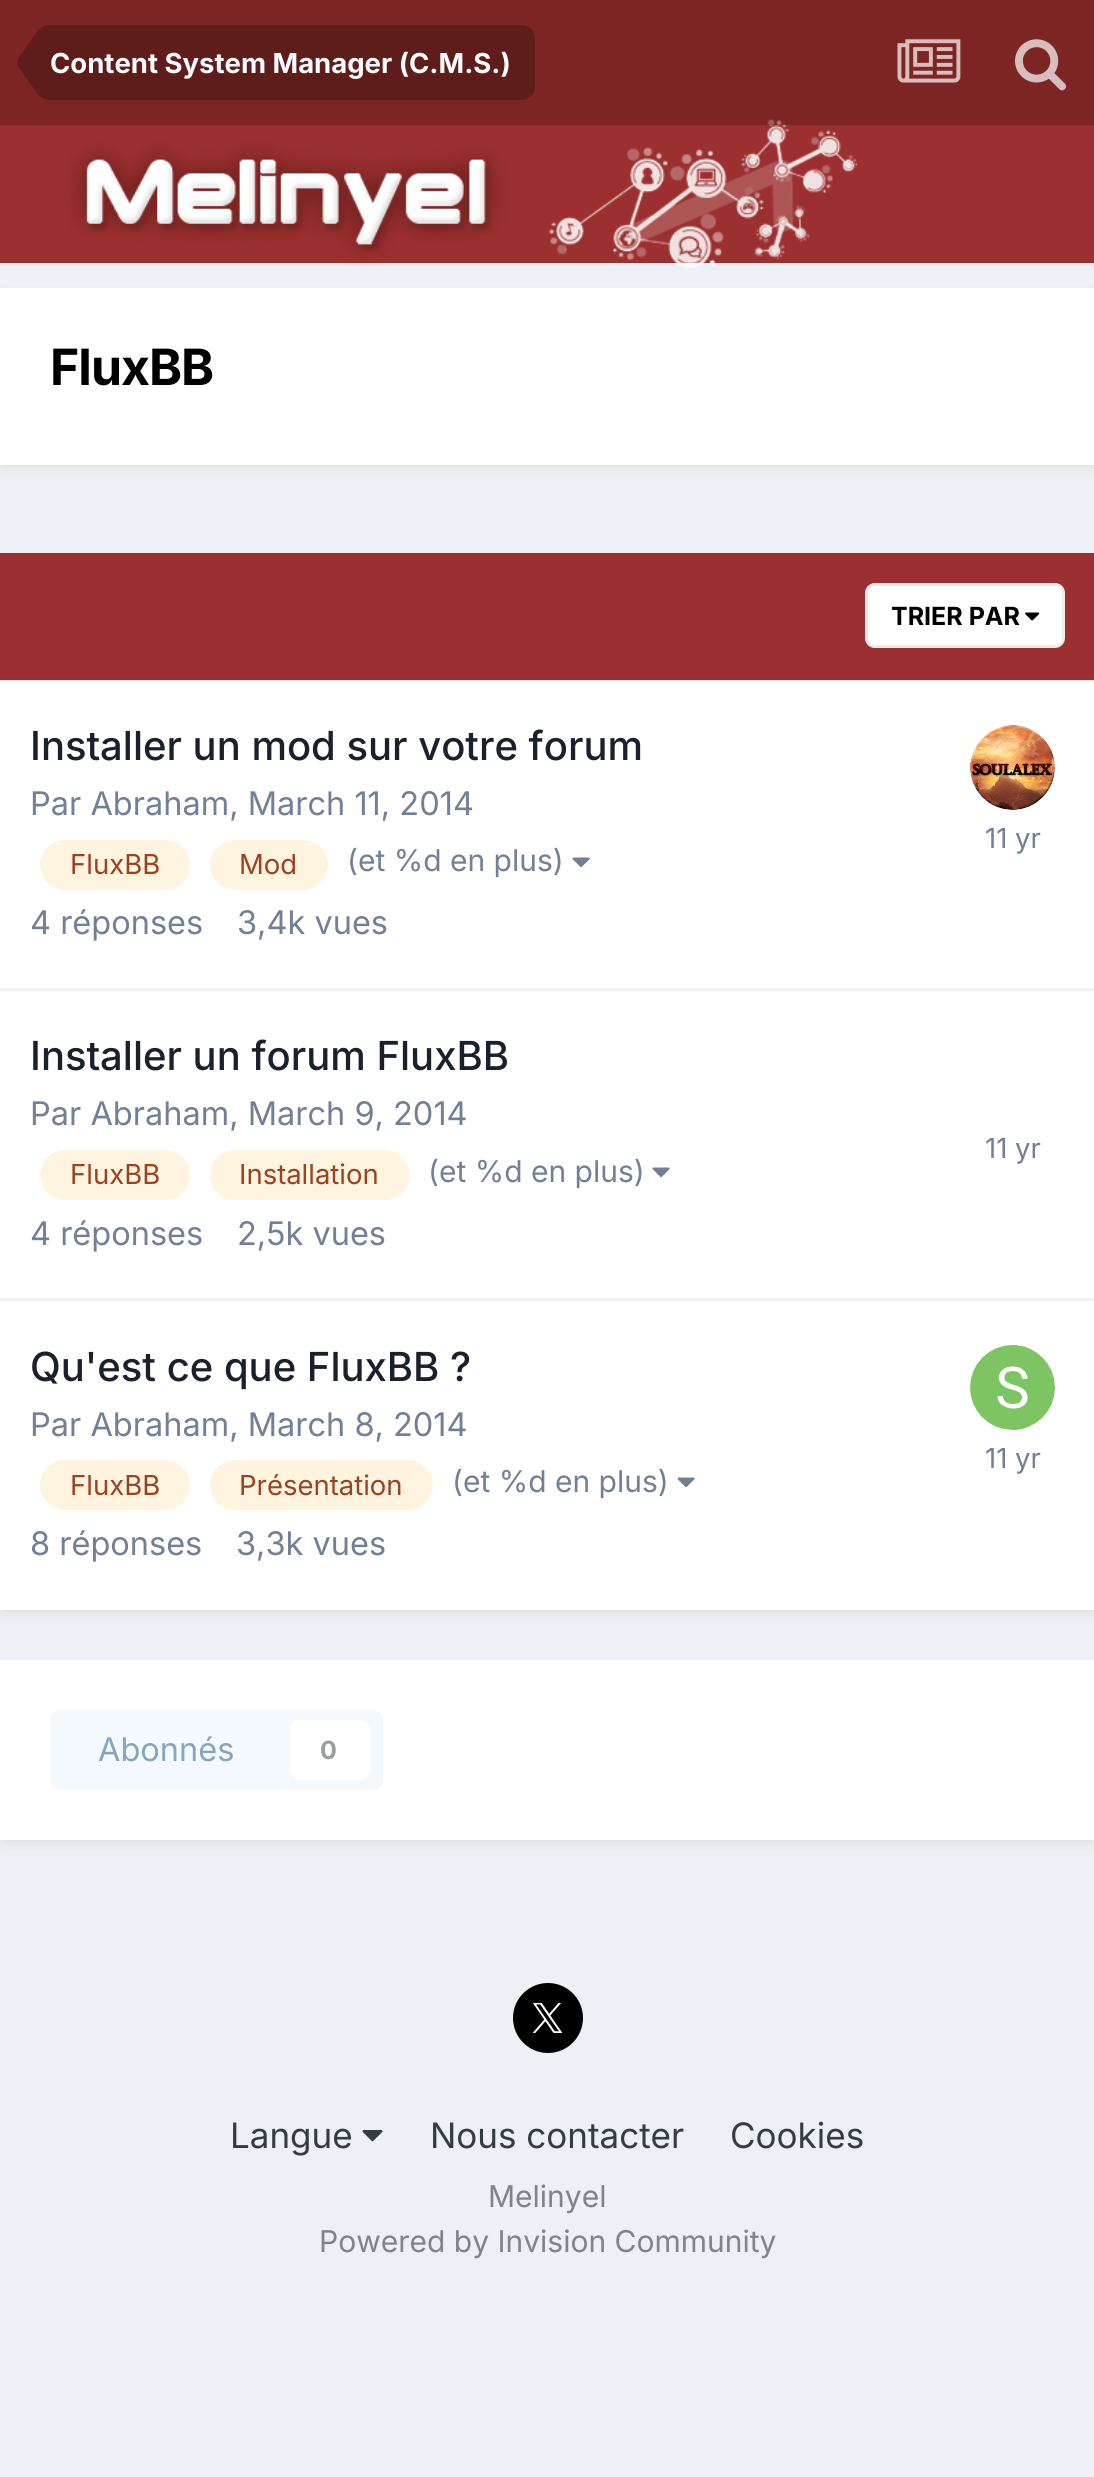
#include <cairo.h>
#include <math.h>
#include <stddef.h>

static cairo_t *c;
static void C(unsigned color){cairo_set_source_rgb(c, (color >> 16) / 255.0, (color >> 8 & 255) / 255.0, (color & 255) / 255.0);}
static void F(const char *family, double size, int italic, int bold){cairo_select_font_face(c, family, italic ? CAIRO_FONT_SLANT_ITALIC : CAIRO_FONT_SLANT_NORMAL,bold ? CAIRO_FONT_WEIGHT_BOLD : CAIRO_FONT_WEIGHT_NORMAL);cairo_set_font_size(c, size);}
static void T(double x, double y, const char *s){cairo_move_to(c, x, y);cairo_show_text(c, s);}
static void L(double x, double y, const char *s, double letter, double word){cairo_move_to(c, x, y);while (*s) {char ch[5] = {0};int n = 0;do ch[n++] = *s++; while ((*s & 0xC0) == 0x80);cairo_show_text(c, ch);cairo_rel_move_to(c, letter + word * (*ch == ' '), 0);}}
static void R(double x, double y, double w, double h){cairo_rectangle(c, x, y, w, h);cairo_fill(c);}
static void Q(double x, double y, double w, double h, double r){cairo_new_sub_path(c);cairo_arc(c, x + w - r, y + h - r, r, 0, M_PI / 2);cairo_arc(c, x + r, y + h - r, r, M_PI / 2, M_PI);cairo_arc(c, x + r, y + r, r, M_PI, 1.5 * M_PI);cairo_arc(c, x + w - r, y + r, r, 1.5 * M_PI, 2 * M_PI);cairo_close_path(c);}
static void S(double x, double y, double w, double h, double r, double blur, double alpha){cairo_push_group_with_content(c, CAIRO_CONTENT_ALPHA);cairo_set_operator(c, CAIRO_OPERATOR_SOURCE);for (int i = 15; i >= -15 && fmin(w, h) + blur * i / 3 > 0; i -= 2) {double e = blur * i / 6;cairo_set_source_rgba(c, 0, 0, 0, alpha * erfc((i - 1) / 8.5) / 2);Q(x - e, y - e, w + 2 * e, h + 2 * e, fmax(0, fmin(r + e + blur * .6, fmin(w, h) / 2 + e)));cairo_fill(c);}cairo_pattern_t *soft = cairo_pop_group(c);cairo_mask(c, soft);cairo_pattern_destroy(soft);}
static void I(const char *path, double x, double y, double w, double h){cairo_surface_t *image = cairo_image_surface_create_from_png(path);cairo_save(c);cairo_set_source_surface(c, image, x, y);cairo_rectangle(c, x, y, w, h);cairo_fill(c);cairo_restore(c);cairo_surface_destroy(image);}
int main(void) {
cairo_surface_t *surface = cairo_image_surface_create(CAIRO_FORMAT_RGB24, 1094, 2477);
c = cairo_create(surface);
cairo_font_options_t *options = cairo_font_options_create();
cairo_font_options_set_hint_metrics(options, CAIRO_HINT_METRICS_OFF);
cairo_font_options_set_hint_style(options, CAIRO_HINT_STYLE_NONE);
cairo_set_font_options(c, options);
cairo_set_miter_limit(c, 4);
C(0xedf0f4);
cairo_paint(c);
C(0x7d2524);
R(0,0,1094,125);
C(0x5e1c1b);
cairo_new_path(c);
cairo_move_to(c,50,25);
cairo_line_to(c,522,25);
cairo_curve_to(c,529,25,535,31,535,38);
cairo_line_to(c,535,87);
cairo_curve_to(c,535,94,529,100,522,100);
cairo_line_to(c,50,100);
cairo_close_path(c);
cairo_fill(c);
cairo_new_path(c);
cairo_move_to(c,18.5,67);
cairo_curve_to(c,18,65.5,17.5,64,17.5,62.5);
cairo_line_to(c,50,62.5);
cairo_line_to(c,50,100);
cairo_curve_to(c,45.5,100,41,98,37.5,94);
cairo_close_path(c);
cairo_fill(c);
cairo_set_source_rgba(c,0,0,0,0.25);
cairo_new_path(c);
cairo_move_to(c,50,25);
cairo_line_to(c,50,62.5);
cairo_line_to(c,17.5,62.5);
cairo_curve_to(c,17.5,61,18,59.5,18.5,58);
cairo_line_to(c,37.5,31);
cairo_curve_to(c,41,27,45.5,25,50,25);
cairo_close_path(c);
cairo_fill(c);
F("Inter",27.5,0,1);
C(0xffffff);
T(50,73,"Content System Manager (C.M.S.)");
I("1.png",897,39,64,44);
I("2.png",1015,39,52,52);
C(0x9c3030);
R(0,125,1094,138);
I("3.png",68,118,790,150);
C(0x7d2524);
S(3,295,1090,173,0,5,.1);
C(0xffffff);
R(0,288,1094,177);
F("Inter",50,0,1);
C(0x000000);
L(50,385,"FluxBB",-1,0);
C(0x7d2524);
S(3,560,1090,1053,0,5,.1);
C(0xffffff);
R(0,681,1094,929);
C(0xe1e2e3);
R(0,680,1094,1);
C(0x9c3030);
R(0,553,1094,125);
C(0x8d3233);
R(0,678,1094,2);
C(0xffffff);
Q(865,583,200,65,10);
cairo_fill(c);
I("4.png",1025,612,15,9);
Q(866.5,584.5,197,62,8.5);
cairo_set_source_rgba(c,0.208,0.235,0.255,0.1);
cairo_set_line_width(c,3);
cairo_stroke(c);
F("Inter",25,0,1);
C(0x000000);
T(891,625,"TRIER PAR");
C(0xf1f2f5);
R(0,988,1094,3);
F("Inter Medium",40,0,0);
C(0x1a202c);
T(30,760,"Installer un mod sur votre forum");
F("Inter",32.5,0,0);
C(0x718096);
T(30,815,"Par Abraham, March 11, 2014");
C(0xfff4df);
Q(40,840,150,50,25);
cairo_fill(c);
F("Inter",27.5,0,0);
C(0x9c4221);
T(70,874,"FluxBB");
C(0xfff4df);
Q(210,840,118,50,25);
cairo_fill(c);
C(0x9c4221);
T(239,874,"Mod");
F("Inter",30,0,0);
C(0x718096);
T(347,871,"(et %d en plus)");
I("5.png",572,857,18,11);
I("6.png",970,725,85,85);
F("Inter",27.5,0,0);
T(985,848,"11 yr");
F("Inter",32.5,0,0);
T(30,934,"4 réponses");
T(237,934,"3,4k vues");
C(0xf1f2f5);
R(0,1298,1094,3);
F("Inter Medium",40,0,0);
C(0x1a202c);
T(30,1070,"Installer un forum FluxBB");
F("Inter",32.5,0,0);
C(0x718096);
T(30,1125,"Par Abraham, March 9, 2014");
C(0xfff4df);
Q(40,1150,150,50,25);
cairo_fill(c);
F("Inter",27.5,0,0);
C(0x9c4221);
T(70,1184,"FluxBB");
C(0xfff4df);
Q(210,1150,200,50,25);
cairo_fill(c);
C(0x9c4221);
T(239,1184,"Installation");
F("Inter",30,0,0);
C(0x718096);
T(428,1182,"(et %d en plus)");
I("5.png",652,1167,18,11);
F("Inter",27.5,0,0);
T(985,1158,"11 yr");
F("Inter",32.5,0,0);
T(30,1245,"4 réponses");
T(237,1245,"2,5k vues");
F("Inter Medium",40,0,0);
C(0x1a202c);
T(30,1381,"Qu'est ce que FluxBB ?");
F("Inter",32.5,0,0);
C(0x718096);
T(30,1436,"Par Abraham, March 8, 2014");
C(0xfff4df);
Q(40,1460,150,50,25);
cairo_fill(c);
F("Inter",27.5,0,0);
C(0x9c4221);
T(70,1495,"FluxBB");
C(0xfff4df);
Q(210,1460,223,50,25);
cairo_fill(c);
C(0x9c4221);
T(239,1495,"Présentation");
F("Inter",30,0,0);
C(0x718096);
T(452,1492,"(et %d en plus)");
I("5.png",677,1477,18,11);
I("7.png",970,1345,85,85);
F("Inter",27.5,0,0);
T(985,1468,"11 yr");
F("Inter",32.5,0,0);
T(30,1555,"8 réponses");
T(236,1555,"3,3k vues");
C(0x7d2524);
S(3,1668,1090,175,0,5,.1);
C(0xffffff);
R(0,1660,1094,180);
C(0xf4f9fd);
Q(50,1710,333,80,10);
cairo_fill(c);
C(0x87a6bc);
T(98,1761,"Abonnés");
C(0xffffff);
Q(290,1720,80,60,10);
cairo_fill(c);
F("Inter",25,0,1);
C(0x9a9ea0);
T(320,1759,"0");
C(0x000000);
cairo_new_path(c);
cairo_arc(c,548,2018,35,0,2 * M_PI);
cairo_fill(c);
I("8.png",533,2003,30,30);
F("Inter",35,0,0);
C(0x353c41);
T(230,2148,"Langue");
I("9.png",362,2130,21,12);
T(430,2148,"Nous contacter");
T(730,2148,"Cookies");
F("Inter",30,0,0);
C(0x7f8489);
T(488,2207,"Melinyel");
T(319,2252,"Powered by Invision Community");
cairo_surface_write_to_png(surface, "o.png");
cairo_font_options_destroy(options);
cairo_destroy(c);
cairo_surface_destroy(surface);
return 0;
}
